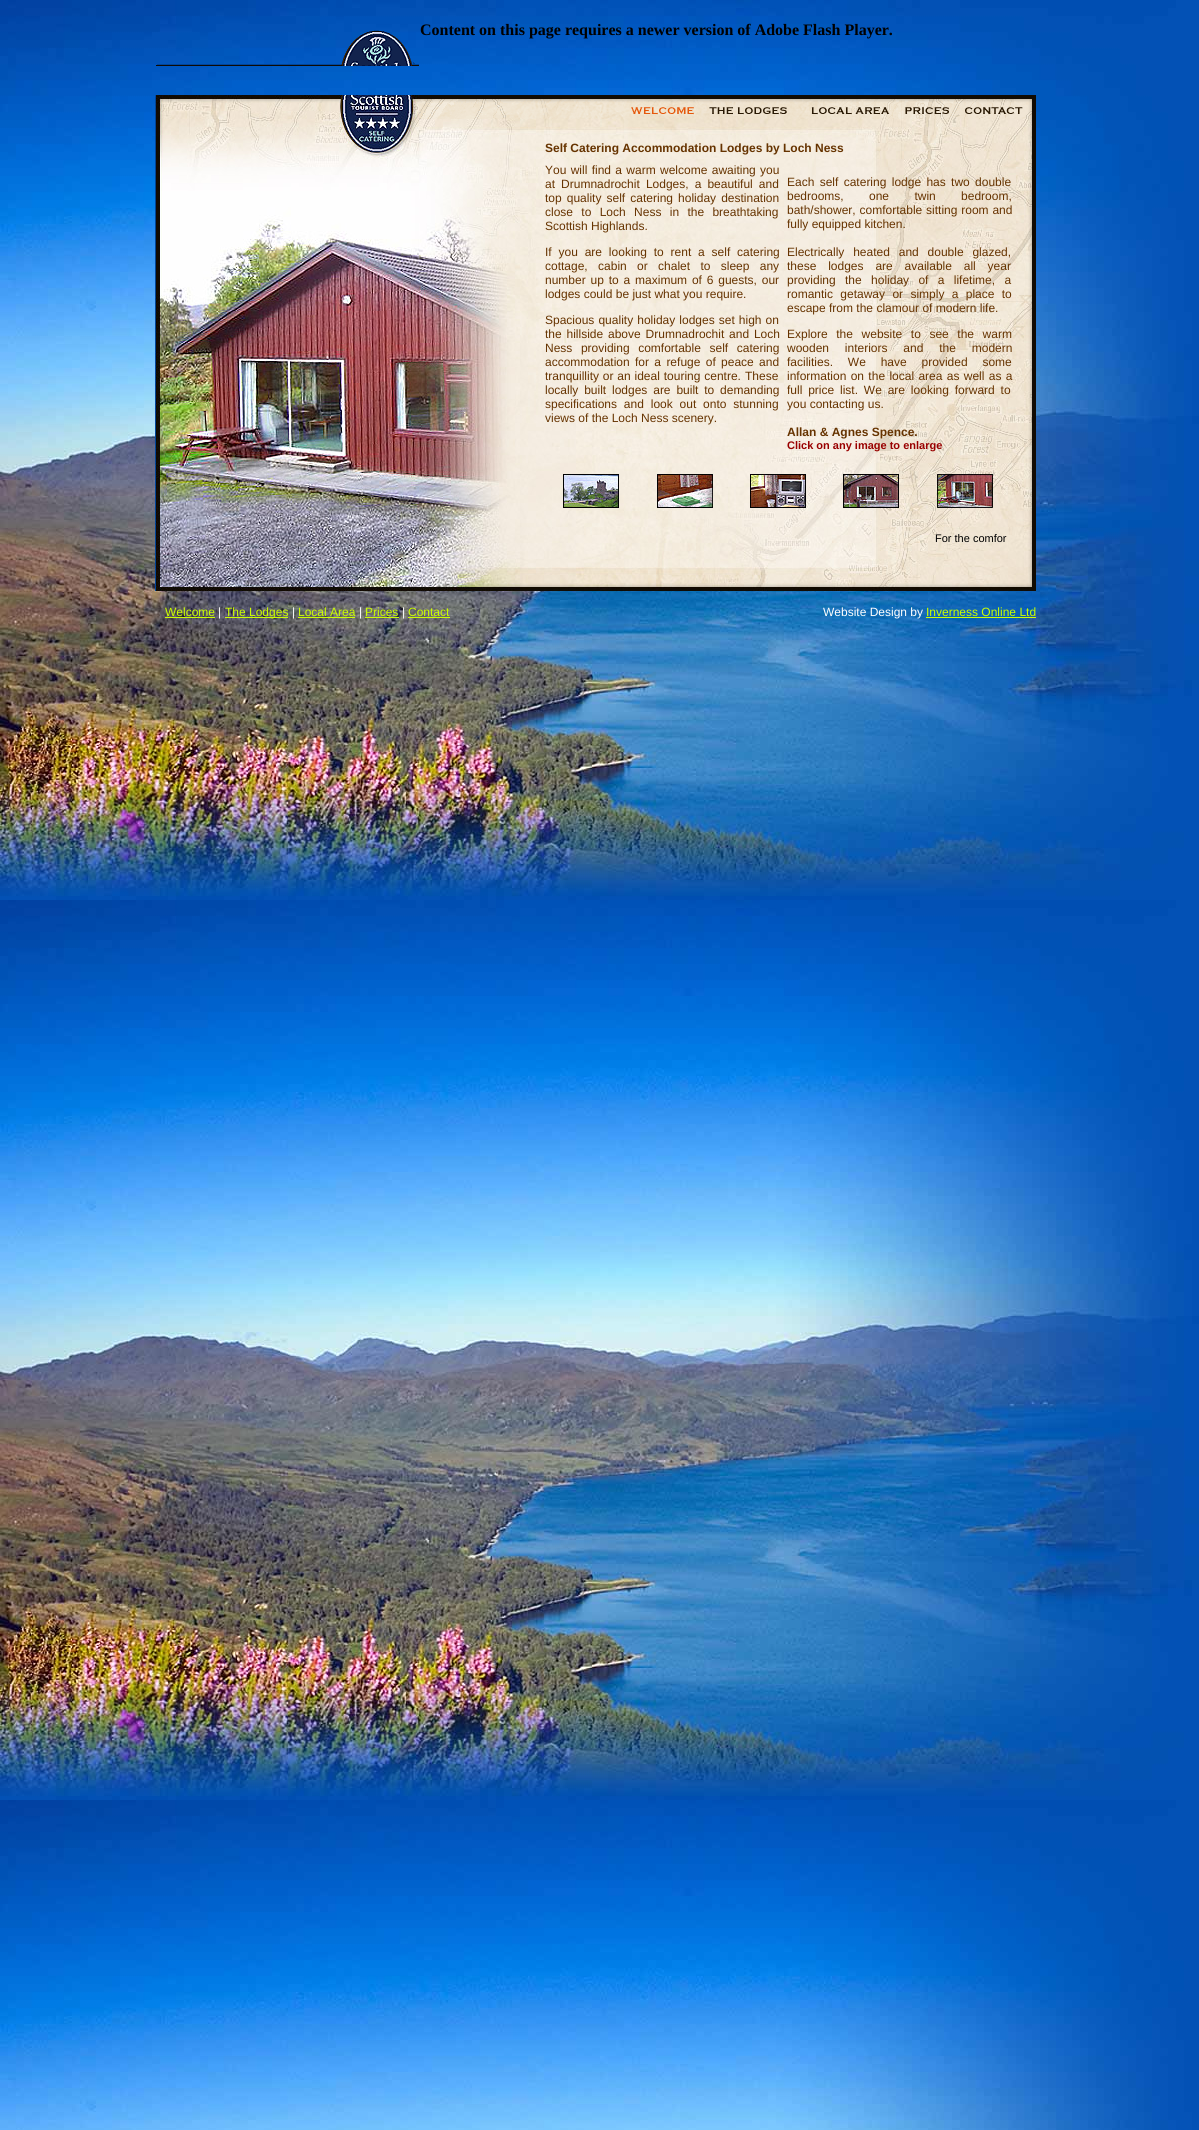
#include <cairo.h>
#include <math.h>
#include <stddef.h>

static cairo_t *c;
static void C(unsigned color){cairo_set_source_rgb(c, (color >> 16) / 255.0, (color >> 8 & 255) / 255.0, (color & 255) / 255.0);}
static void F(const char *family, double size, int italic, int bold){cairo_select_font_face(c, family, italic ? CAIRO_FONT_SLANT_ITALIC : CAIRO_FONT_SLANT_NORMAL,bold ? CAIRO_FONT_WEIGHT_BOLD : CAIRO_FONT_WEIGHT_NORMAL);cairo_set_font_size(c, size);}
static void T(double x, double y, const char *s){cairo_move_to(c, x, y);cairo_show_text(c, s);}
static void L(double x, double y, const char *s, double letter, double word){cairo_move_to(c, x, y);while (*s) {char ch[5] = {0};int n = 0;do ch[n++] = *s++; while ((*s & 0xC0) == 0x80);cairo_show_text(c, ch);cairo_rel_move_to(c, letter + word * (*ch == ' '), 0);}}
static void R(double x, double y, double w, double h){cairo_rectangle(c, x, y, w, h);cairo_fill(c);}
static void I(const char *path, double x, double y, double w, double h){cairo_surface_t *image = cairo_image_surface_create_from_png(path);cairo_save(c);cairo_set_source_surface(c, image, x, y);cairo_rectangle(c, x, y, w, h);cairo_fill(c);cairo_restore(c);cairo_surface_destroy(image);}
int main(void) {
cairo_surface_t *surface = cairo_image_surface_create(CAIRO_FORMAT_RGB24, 1199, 2130);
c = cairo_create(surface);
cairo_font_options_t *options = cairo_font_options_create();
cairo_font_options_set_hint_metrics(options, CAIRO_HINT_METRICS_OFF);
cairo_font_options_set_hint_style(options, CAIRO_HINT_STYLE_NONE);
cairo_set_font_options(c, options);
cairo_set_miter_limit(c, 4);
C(0xffffff);
cairo_paint(c);
I("1.png",0,0,1199,2130);
I("2.png",156,30,263,36);
F("Liberation Serif",16,0,1);
C(0x000000);
T(420,35,"Content on this page requires a newer version of Adobe Flash Player.");
I("3.png",155,95,264,24);
I("4.png",419,95,205,24);
I("5.png",624,95,78,24);
I("6.png",702,95,97,24);
I("7.png",799,95,97,24);
I("8.png",896,95,61,24);
I("9.png",957,95,79,24);
I("10.png",155,119,365,472);
I("11.png",520,119,516,472);
F("Liberation Sans",12,0,1);
C(0x663300);
T(545,152,"Self Catering Accommodation Lodges by Loch Ness");
F("Liberation Sans",12,0,0);
L(545,174,"You will find a warm welcome awaiting you",0,1);
L(545,188,"at Drumnadrochit Lodges, a beautiful and",0,2.75);
L(545,202,"top quality self catering holiday destination",0,1.75);
L(545,216,"close to Loch Ness in the breathtaking",0,5);
T(545,230,"Scottish Highlands.");
L(545,256,"If you are looking to rent a self catering",0,3.5);
L(545,270,"cottage, cabin or chalet to sleep any",0,7);
L(545,284,"number up to a maximum of 6 guests, our",0,1.5);
T(545,298,"lodges could be just what you require.");
L(545,324,"Spacious quality holiday lodges set high on",0,.75);
L(545,338,"the hillside above Drumnadrochit and Loch",0,1.5);
L(545,352,"Ness providing comfortable self catering",0,5.25);
L(545,366,"accommodation for a refuge of peace and",0,2);
L(545,380,"tranquillity or an ideal touring centre.",0,.5);
T(745,380,"These");
L(545,394,"locally built lodges are built to demanding",0,2.5);
L(545,408,"specifications and look out onto stunning",0,3.5);
T(545,422,"views of the Loch Ness scenery.");
L(787,186,"Each self catering lodge has two double",0,2);
L(787,200,"bedrooms, one twin bedroom,",0,22);
L(787,214,"bath/shower, comfortable sitting room and",0,.5);
T(787,228,"fully equipped kitchen.");
L(787,256,"Electrically heated and double glazed,",0,5.5);
L(787,270,"these lodges are available all year",0,8.5);
L(787,284,"providing the holiday of a lifetime, a",0,6);
L(787,298,"romantic getaway or simply a place to",0,4);
T(787,312,"escape from the clamour of modern life.");
L(787,338,"Explore the website to see the warm",0,5.25);
L(787,352,"wooden interiors and the modern",0,12.5);
L(787,366,"facilities. We have provided some",0,11.5);
L(787,380,"information on the local area as well as a",0,1);
L(787,394,"full price list. We are looking forward to",0,2.5);
T(787,408,"you contacting us.");
F("Liberation Sans",12,0,1);
T(787,436,"Allan & Agnes Spence.");
F("Liberation Sans",11,0,1);
C(0x990000);
T(787,449,"Click on any image to enlarge");
I("12.png",563,474,56,34);
I("13.png",657,474,56,34);
I("14.png",750,474,56,34);
I("15.png",843,474,56,34);
I("16.png",937,474,56,34);
F("Liberation Sans",11,0,0);
C(0x000000);
T(935,542,"For the comfor");
F("Liberation Sans",12,0,0);
C(0xccff00);
T(165,616,"Welcome");
R(165,617,50,1);
C(0xffffff);
T(218,616,"|");
C(0xccff00);
R(225,617,63,1);
T(225,616,"The Lodges");
C(0xffffff);
T(292,616,"|");
C(0xccff00);
T(298,616,"Local Area");
R(298,617,57,1);
C(0xffffff);
T(359,616,"|");
C(0xccff00);
T(365,616,"Prices");
R(365,617,34,1);
C(0xffffff);
T(402,616,"|");
C(0xccff00);
T(408,616,"Contact");
R(408,617,42,1);
C(0xffffff);
T(823,616,"Website Design by");
C(0xccff00);
T(926,616,"Inverness Online Ltd");
R(926,617,110,1);
cairo_surface_write_to_png(surface, "o.png");
cairo_font_options_destroy(options);
cairo_destroy(c);
cairo_surface_destroy(surface);
return 0;
}
